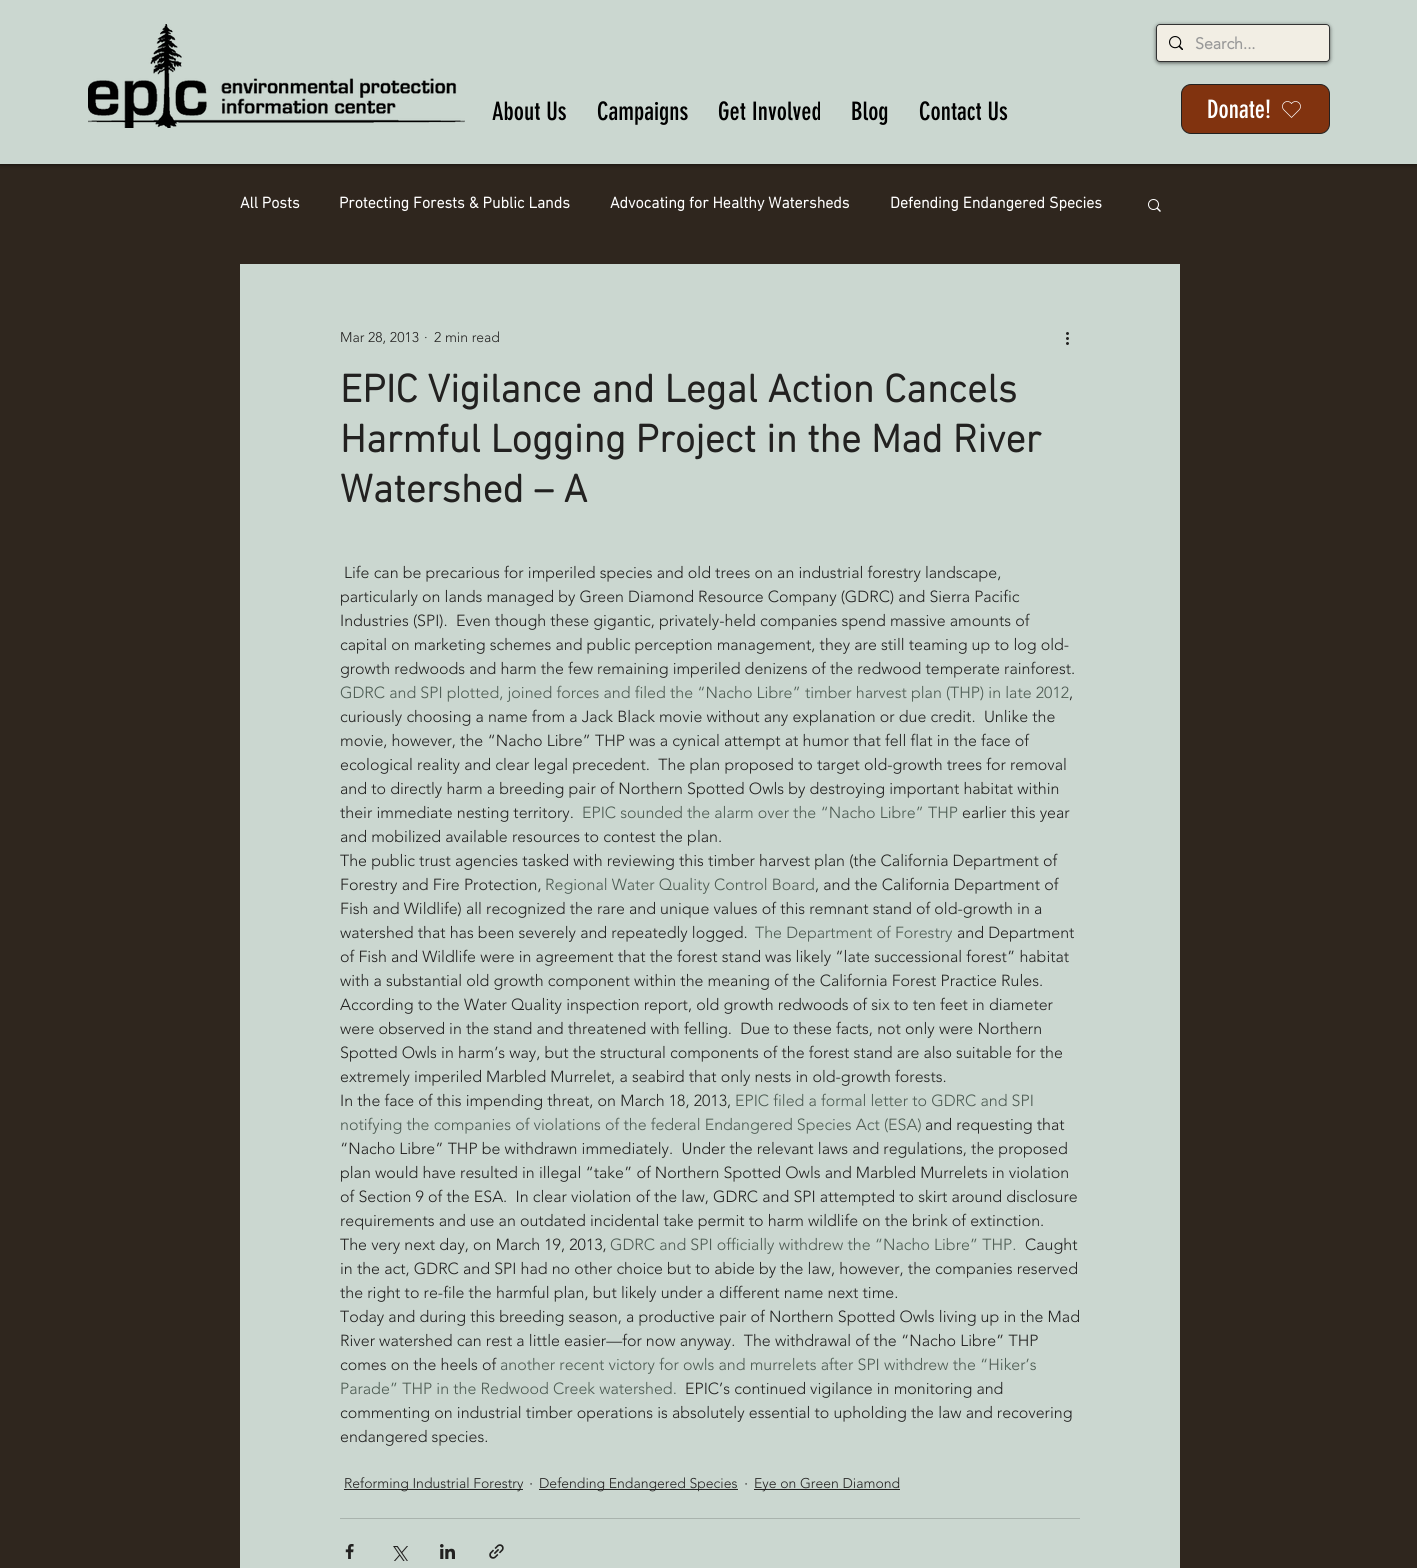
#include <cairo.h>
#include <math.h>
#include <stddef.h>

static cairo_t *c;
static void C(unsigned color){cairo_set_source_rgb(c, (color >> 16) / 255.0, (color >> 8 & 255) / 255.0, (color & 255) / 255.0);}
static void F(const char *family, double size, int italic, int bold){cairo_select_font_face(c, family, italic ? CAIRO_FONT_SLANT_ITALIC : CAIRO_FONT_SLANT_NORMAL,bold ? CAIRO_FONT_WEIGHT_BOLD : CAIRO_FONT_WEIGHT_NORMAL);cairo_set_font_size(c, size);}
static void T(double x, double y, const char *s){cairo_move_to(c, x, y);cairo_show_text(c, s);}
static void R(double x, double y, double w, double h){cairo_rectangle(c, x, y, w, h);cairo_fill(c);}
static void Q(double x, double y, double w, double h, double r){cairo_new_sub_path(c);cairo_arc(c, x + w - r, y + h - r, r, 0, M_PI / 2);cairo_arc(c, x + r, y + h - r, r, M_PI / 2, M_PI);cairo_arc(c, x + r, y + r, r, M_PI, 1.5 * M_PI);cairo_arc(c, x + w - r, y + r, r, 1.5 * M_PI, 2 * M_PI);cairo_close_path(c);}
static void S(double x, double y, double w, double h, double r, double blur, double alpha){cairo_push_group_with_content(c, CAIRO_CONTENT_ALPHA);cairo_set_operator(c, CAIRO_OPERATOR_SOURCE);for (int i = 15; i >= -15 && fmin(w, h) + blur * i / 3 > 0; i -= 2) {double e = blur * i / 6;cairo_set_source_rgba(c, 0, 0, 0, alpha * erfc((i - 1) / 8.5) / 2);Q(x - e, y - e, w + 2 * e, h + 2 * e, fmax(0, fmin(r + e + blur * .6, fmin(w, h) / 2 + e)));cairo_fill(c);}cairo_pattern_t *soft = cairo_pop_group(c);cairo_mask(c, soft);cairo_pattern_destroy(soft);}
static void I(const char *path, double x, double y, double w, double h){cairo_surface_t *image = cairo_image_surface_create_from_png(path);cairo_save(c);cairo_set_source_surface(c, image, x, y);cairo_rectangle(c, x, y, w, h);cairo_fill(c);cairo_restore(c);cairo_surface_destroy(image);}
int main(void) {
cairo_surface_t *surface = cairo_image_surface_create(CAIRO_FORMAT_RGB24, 1417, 1568);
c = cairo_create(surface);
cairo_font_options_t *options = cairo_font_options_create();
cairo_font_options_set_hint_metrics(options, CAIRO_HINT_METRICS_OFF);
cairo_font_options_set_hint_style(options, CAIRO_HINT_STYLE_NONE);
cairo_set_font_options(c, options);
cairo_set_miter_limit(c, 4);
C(0x2f261e);
cairo_paint(c);
C(0x000000);
S(0,0,1417,164,0,2.5,.7);
C(0xcbd7d0);
R(0,0,1417,164);
I("1.png",88,24,377,104);
C(0x000000);
S(1156,25,174,38,4,2,.6);
Q(1156.5,24.5,173,37,3.5);
C(0x323232);
cairo_set_line_width(c,1);
cairo_stroke(c);
C(0xf2eee4);
Q(1157,25,172,36,3);
cairo_fill(c);
I("2.png",1169,36,14,14);
F("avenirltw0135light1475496",16,0,1);
C(0x999999);
T(1195,49,"Search...");
F("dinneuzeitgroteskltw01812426",25,0,0);
C(0x000000);
T(492,120,"About Us");
T(597,120,"Campaigns");
T(718,120,"Get Involved");
T(851,120,"Blog");
T(919,120,"Contact Us");
C(0x81330f);
Q(1181.5,84.5,148,49,9.5);
cairo_fill_preserve(c);
C(0x222120);
cairo_stroke(c);
C(0xffffff);
T(1207,118,"Donate!");
I("3.png",1282,101,19,17);
F("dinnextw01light",16,0,1);
T(240,208,"All Posts");
T(339,208,"Protecting Forests & Public Lands");
T(610,208,"Advocating for Healthy Watersheds");
T(890,208,"Defending Endangered Species");
I("4.png",1148,199,13,13);
C(0xcbd7d0);
R(240,264,940,1304);
F("avenirltw0135light1475496 Light",14,0,0);
C(0x222120);
T(340,342,"Mar 28, 2013");
T(424,342,"·");
T(434,342,"2 min read");
I("5.png",1066,332,3,13);
F("dinnextw01light",40,0,1);
T(340,402,"EPIC Vigilance and Legal Action Cancels");
T(340,452,"Harmful Logging Project in the Mad River");
T(340,502,"Watershed – A");
F("avenirltw0135light1475496 Light",16,0,0);
T(344,578,"Life can be precarious for imperiled species and old trees on an industrial forestry landscape,");
T(340,602,"particularly on lands managed by Green Diamond Resource Company (GDRC) and Sierra Pacific");
T(340,626,"Industries (SPI).  Even though these gigantic, privately-held companies spend massive amounts of");
T(340,650,"capital on marketing schemes and public perception management, they are still teaming up to log old-");
T(340,674,"growth redwoods and harm the few remaining imperiled denizens of the redwood temperate rainforest.");
C(0x4b5a51);
T(340,698,"GDRC and SPI plotted, joined forces and filed the “Nacho Libre” timber harvest plan (THP) in late 2012");
C(0x222120);
T(1069,698,",");
T(340,722,"curiously choosing a name from a Jack Black movie without any explanation or due credit.  Unlike the");
T(340,746,"movie, however, the “Nacho Libre” THP was a cynical attempt at humor that fell flat in the face of");
T(340,770,"ecological reality and clear legal precedent.  The plan proposed to target old-growth trees for removal");
T(340,794,"and to directly harm a breeding pair of Northern Spotted Owls by destroying important habitat within");
T(340,818,"their immediate nesting territory.");
C(0x4b5a51);
T(582,818,"EPIC sounded the alarm over the “Nacho Libre” THP");
C(0x222120);
T(962,818,"earlier this year");
T(340,842,"and mobilized available resources to contest the plan.");
T(340,866,"The public trust agencies tasked with reviewing this timber harvest plan (the California Department of");
T(340,890,"Forestry and Fire Protection,");
C(0x4b5a51);
T(545,890,"Regional Water Quality Control Board");
C(0x222120);
T(815,890,", and the California Department of");
T(340,914,"Fish and Wildlife) all recognized the rare and unique values of this remnant stand of old-growth in a");
T(340,938,"watershed that has been severely and repeatedly logged.");
C(0x4b5a51);
T(755,938,"The Department of Forestry");
C(0x222120);
T(957,938,"and Department");
T(340,962,"of Fish and Wildlife were in agreement that the forest stand was likely “late successional forest” habitat");
T(340,986,"with a substantial old growth component within the meaning of the California Forest Practice Rules.");
T(340,1010,"According to the Water Quality inspection report, old growth redwoods of six to ten feet in diameter");
T(340,1034,"were observed in the stand and threatened with felling.  Due to these facts, not only were Northern");
T(340,1058,"Spotted Owls in harm’s way, but the structural components of the forest stand are also suitable for the");
T(340,1082,"extremely imperiled Marbled Murrelet, a seabird that only nests in old-growth forests.");
T(340,1106,"In the face of this impending threat, on March 18, 2013,");
C(0x4b5a51);
T(735,1106,"EPIC filed a formal letter to GDRC and SPI");
T(340,1130,"notifying the companies of violations of the federal Endangered Species Act (ESA)");
C(0x222120);
T(925,1130,"and requesting that");
T(340,1154,"“Nacho Libre” THP be withdrawn immediately.  Under the relevant laws and regulations, the proposed");
T(340,1178,"plan would have resulted in illegal “take” of Northern Spotted Owls and Marbled Murrelets in violation");
T(340,1202,"of Section 9 of the ESA.  In clear violation of the law, GDRC and SPI attempted to skirt around disclosure");
T(340,1226,"requirements and use an outdated incidental take permit to harm wildlife on the brink of extinction.");
T(340,1250,"The very next day, on March 19, 2013,");
C(0x4b5a51);
T(610,1250,"GDRC and SPI officially withdrew the “Nacho Libre” THP.");
C(0x222120);
T(1025,1250,"Caught");
T(340,1274,"in the act, GDRC and SPI had no other choice but to abide by the law, however, the companies reserved");
T(340,1298,"the right to re-file the harmful plan, but likely under a different name next time.");
T(340,1322,"Today and during this breeding season, a productive pair of Northern Spotted Owls living up in the Mad");
T(340,1346,"River watershed can rest a little easier—for now anyway.  The withdrawal of the “Nacho Libre” THP");
T(340,1370,"comes on the heels of");
C(0x4b5a51);
T(500,1370,"another recent victory for owls and murrelets after SPI withdrew the “Hiker’s");
T(340,1394,"Parade” THP in the Redwood Creek watershed.");
C(0x222120);
T(685,1394,"EPIC’s continued vigilance in monitoring and");
T(340,1418,"commenting on industrial timber operations is absolutely essential to upholding the law and recovering");
T(340,1442,"endangered species.");
R(344,1489,179,1);
F("avenirltw0135light1475496 Light",14,0,0);
T(344,1488,"Reforming Industrial Forestry");
F("avenirltw0135light1475496 Light",16,0,0);
T(529,1489,"·");
R(539,1489,199,1);
F("avenirltw0135light1475496 Light",14,0,0);
T(539,1488,"Defending Endangered Species");
F("avenirltw0135light1475496 Light",16,0,0);
T(744,1489,"·");
R(754,1489,146,1);
F("avenirltw0135light1475496 Light",14,0,0);
T(754,1488,"Eye on Green Diamond");
C(0xa9b3ad);
R(340,1518,740,1);
I("6.png",345,1544,9,15);
I("7.png",393,1546,15,15);
I("8.png",440,1544,15,15);
I("9.png",489,1544,15,15);
cairo_surface_write_to_png(surface, "o.png");
cairo_font_options_destroy(options);
cairo_destroy(c);
cairo_surface_destroy(surface);
return 0;
}
